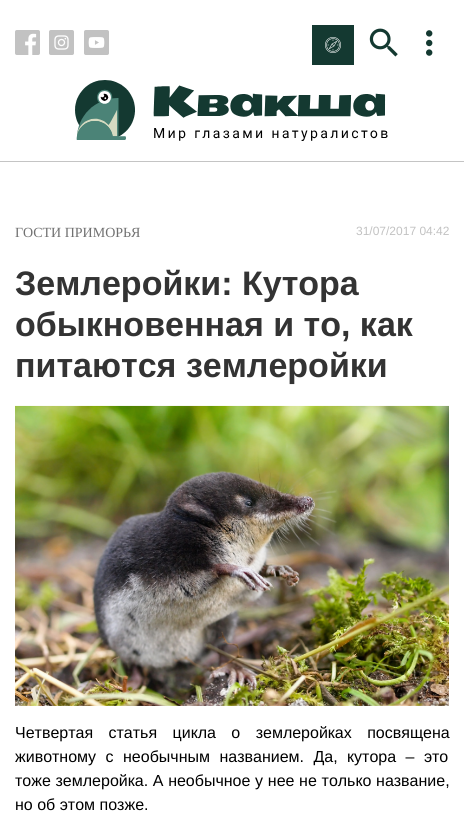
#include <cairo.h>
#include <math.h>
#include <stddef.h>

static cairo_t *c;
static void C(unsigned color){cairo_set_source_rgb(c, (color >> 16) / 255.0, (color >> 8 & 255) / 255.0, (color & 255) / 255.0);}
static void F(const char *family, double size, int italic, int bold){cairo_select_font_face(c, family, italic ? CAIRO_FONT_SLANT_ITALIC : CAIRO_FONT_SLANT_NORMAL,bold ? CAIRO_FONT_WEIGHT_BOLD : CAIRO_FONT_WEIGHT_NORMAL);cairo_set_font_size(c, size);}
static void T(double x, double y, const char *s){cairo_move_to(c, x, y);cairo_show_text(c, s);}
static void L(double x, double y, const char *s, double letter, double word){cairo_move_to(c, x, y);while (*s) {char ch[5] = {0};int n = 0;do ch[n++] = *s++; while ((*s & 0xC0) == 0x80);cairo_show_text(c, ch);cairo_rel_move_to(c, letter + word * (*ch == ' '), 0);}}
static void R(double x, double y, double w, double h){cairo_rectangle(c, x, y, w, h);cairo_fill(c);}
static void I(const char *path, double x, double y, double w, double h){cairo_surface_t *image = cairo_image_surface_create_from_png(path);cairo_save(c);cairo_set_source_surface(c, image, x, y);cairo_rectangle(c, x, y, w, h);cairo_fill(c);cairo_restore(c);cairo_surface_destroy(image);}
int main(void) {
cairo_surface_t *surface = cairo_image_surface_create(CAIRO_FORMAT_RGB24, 464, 825);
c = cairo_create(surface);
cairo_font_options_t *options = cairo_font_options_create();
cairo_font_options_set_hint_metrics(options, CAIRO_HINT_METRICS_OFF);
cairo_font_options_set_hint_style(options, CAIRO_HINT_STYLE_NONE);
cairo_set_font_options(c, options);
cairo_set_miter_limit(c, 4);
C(0xffffff);
cairo_paint(c);
C(0xc4c4c4);
R(0,161,464,1);
I("1.png",15,30,25,25);
I("2.png",49,30,25,25);
I("3.png",84,30,25,25);
C(0x143931);
R(312,25,42,40);
I("4.png",325,37,16,16);
I("5.png",75,80,313,61);
I("6.png",369,28,29,29);
I("7.png",426,30,7,26);
F("Liberation Serif",14,0,0);
C(0x717171);
T(15,237,"ГОСТИ ПРИМОРЬЯ");
F("Liberation Sans",12,0,0);
C(0xc2c2c2);
T(356,235,"31/07/2017 04:42");
F("Liberation Sans",34,0,1);
C(0x333333);
T(15,295,"Землеройки: Кутора");
T(15,336,"обыкновенная и то, как");
T(15,377,"питаются землеройки");
I("8.png",15,405,434,301);
F("Liberation Sans",16,0,0);
C(0x000000);
L(15,738,"Четвертая статья цикла о землеройках посвящена",0,11);
L(15,762,"животному с необычным названием. Да, кутора – это",0,5);
L(15,786,"тоже землеройка. А необычное у нее не только название,",0,.25);
T(15,810,"но об этом позже.");
cairo_surface_write_to_png(surface, "o.png");
cairo_font_options_destroy(options);
cairo_destroy(c);
cairo_surface_destroy(surface);
return 0;
}
